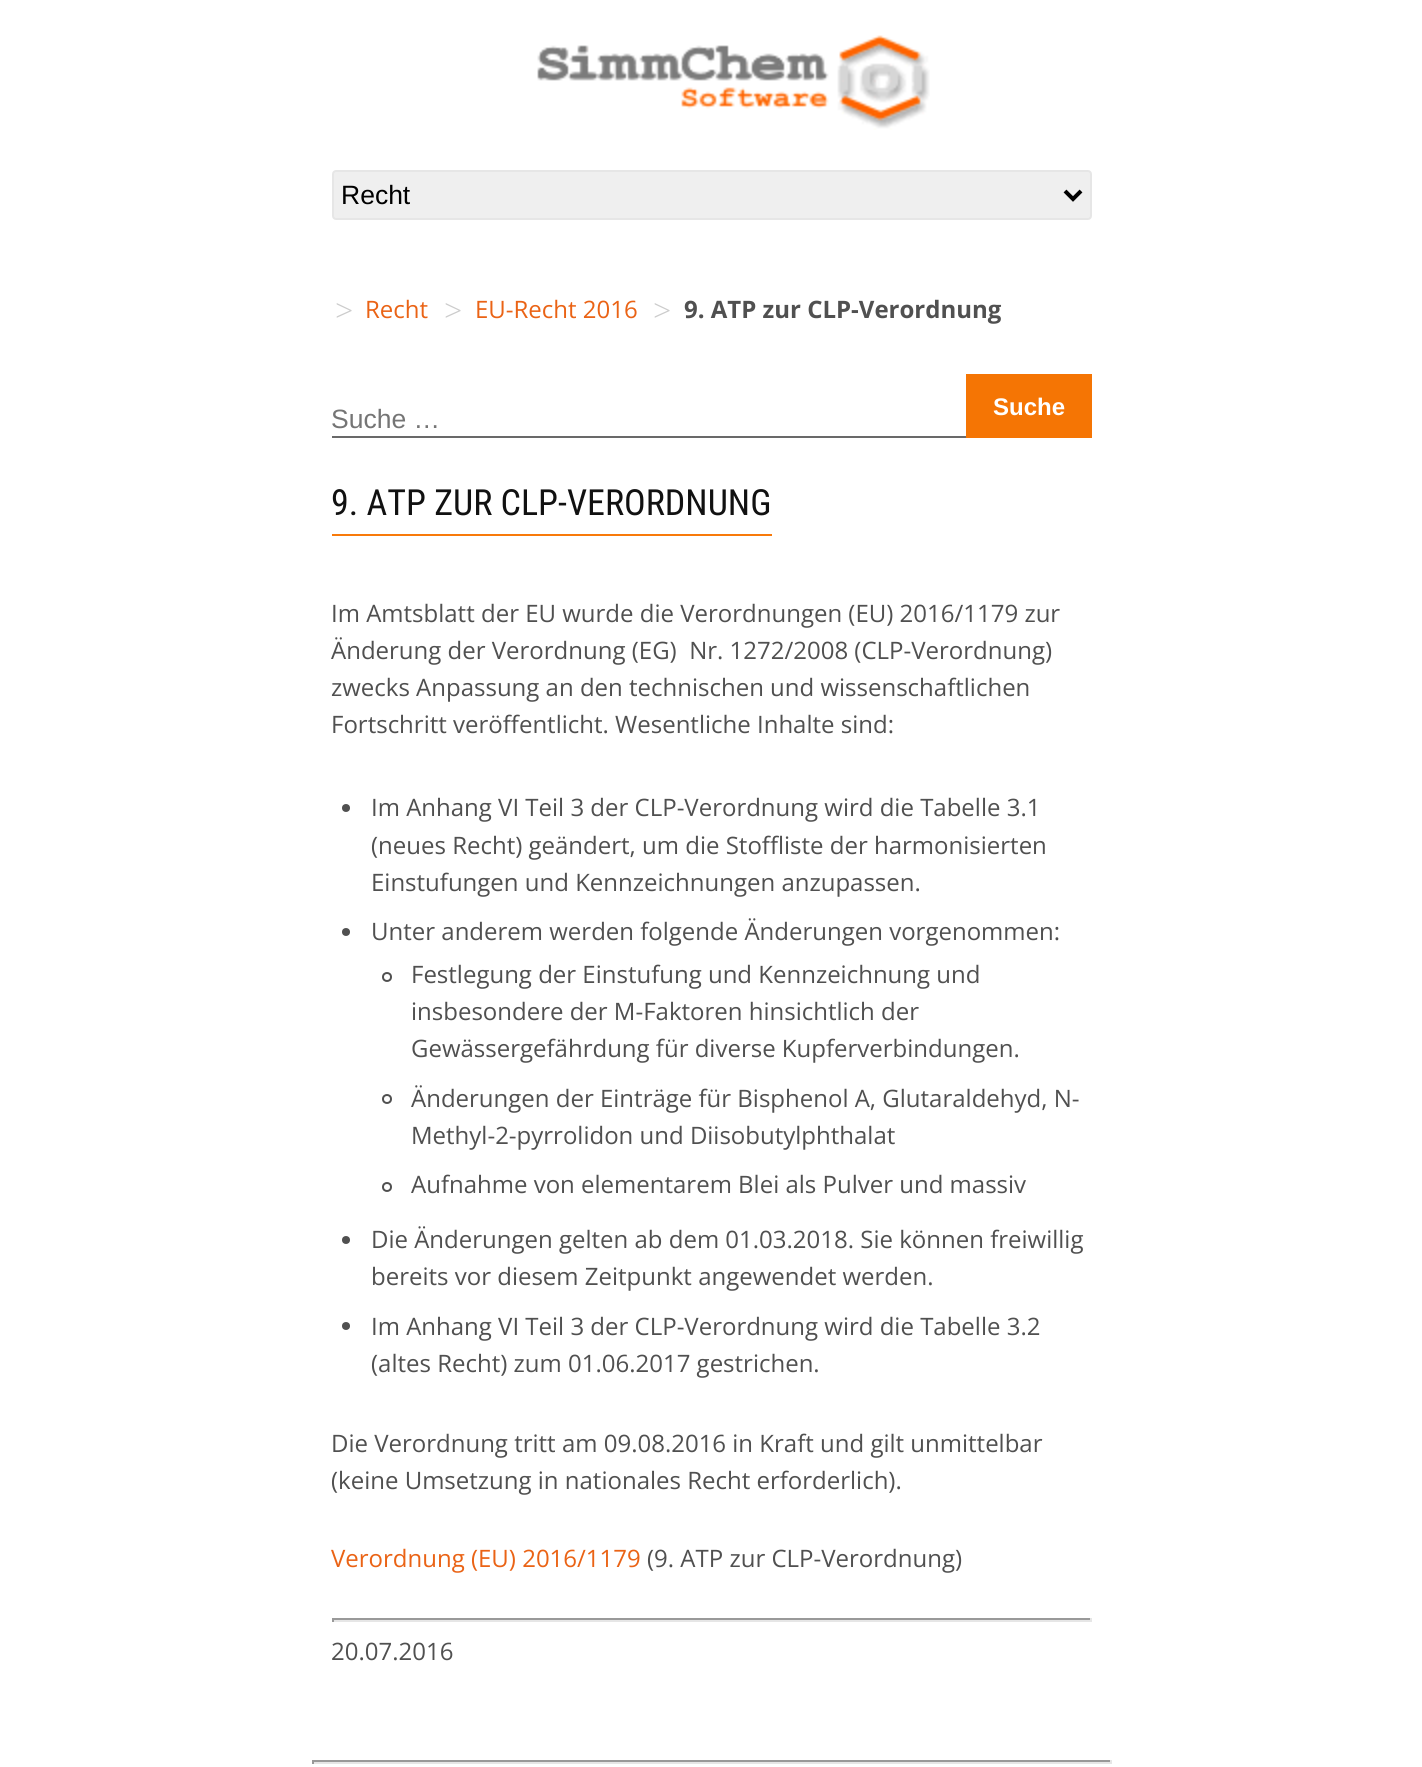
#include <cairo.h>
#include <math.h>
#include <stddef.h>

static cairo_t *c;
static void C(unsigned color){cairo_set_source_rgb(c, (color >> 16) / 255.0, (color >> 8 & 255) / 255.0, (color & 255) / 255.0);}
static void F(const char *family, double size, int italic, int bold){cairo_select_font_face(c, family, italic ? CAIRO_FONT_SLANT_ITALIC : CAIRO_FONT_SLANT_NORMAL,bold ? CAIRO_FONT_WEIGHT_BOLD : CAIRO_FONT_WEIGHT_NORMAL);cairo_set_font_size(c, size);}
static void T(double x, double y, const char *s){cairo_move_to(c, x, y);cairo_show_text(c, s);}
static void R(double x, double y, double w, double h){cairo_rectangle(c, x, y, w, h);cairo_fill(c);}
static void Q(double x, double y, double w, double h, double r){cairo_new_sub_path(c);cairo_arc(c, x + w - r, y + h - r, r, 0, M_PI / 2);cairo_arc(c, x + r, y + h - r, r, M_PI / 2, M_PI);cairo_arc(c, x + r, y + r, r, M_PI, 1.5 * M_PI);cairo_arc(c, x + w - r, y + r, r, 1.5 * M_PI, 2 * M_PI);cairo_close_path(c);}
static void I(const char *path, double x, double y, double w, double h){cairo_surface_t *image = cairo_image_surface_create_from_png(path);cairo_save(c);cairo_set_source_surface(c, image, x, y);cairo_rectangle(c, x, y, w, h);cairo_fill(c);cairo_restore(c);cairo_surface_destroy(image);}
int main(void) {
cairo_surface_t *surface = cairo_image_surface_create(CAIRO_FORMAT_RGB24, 1422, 1767);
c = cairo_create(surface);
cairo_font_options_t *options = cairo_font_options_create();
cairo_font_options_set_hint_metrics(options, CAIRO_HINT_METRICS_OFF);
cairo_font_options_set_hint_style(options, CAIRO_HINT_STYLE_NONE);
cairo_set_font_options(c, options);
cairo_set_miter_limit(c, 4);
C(0xffffff);
cairo_paint(c);
I("1.png",537,35,393,95);
C(0xefefef);
Q(333,171,758,48,3);
cairo_fill_preserve(c);
C(0xe6e6e6);
cairo_stroke(c);
cairo_new_path(c);
cairo_move_to(c,1065,191);
cairo_line_to(c,1073,199);
cairo_line_to(c,1081,191);
C(0x000000);
cairo_set_line_width(c,4);
cairo_stroke(c);
F("Liberation Sans",26.5,0,0);
T(341,204,"Recht");
F("Open Sans Light",32,0,0);
C(0xcccccc);
T(335,322,">");
F("Open Sans",24,0,0);
C(0xea6315);
T(365,318,"Recht");
F("Open Sans Light",32,0,0);
C(0xcccccc);
T(444,322,">");
F("Open Sans",24,0,0);
C(0xea6315);
T(475,318,"EU-Recht 2016");
F("Open Sans Light",32,0,0);
C(0xcccccc);
T(653,322,">");
F("Open Sans",24,0,1);
C(0x505050);
T(684,318,"9. ATP zur CLP-Verordnung");
F("Liberation Sans",26.5,0,0);
C(0x757575);
T(331,428,"Suche …");
C(0xf57504);
R(966,374,126,64);
F("Liberation Sans",24,0,1);
C(0xffffff);
T(993,415,"Suche");
C(0x696969);
R(332,436,634,2);
C(0xf87a0a);
R(332,534,440,2);
F("Roboto Condensed",36,0,0);
C(0x111111);
T(331,515,"9. ATP ZUR CLP-VERORDNUNG");
F("Open Sans",24,0,0);
C(0x505050);
T(331,622,"Im Amtsblatt der EU wurde die Verordnungen (EU) 2016/1179 zur");
T(331,659,"Änderung der Verordnung (EG)  Nr. 1272/2008 (CLP-Verordnung)");
T(331,696,"zwecks Anpassung an den technischen und wissenschaftlichen");
T(331,733,"Fortschritt veröffentlicht. Wesentliche Inhalte sind:");
cairo_new_path(c);
cairo_arc(c,346,808,4,0,2 * M_PI);
cairo_fill(c);
T(371,816,"Im Anhang VI Teil 3 der CLP-Verordnung wird die Tabelle 3.1");
T(371,854,"(neues Recht) geändert, um die Stoffliste der harmonisierten");
T(371,891,"Einstufungen und Kennzeichnungen anzupassen.");
cairo_new_path(c);
cairo_arc(c,346,932,4,0,2 * M_PI);
cairo_fill(c);
T(371,940,"Unter anderem werden folgende Änderungen vorgenommen:");
cairo_new_path(c);
cairo_arc(c,387,977,4,0,2 * M_PI);
cairo_set_line_width(c,2);
cairo_stroke(c);
T(411,983,"Festlegung der Einstufung und Kennzeichnung und");
T(411,1020,"insbesondere der M-Faktoren hinsichtlich der");
T(411,1057,"Gewässergefährdung für diverse Kupferverbindungen.");
cairo_new_path(c);
cairo_arc(c,387,1099,4,0,2 * M_PI);
cairo_stroke(c);
T(411,1107,"Änderungen der Einträge für Bisphenol A, Glutaraldehyd, N-");
T(411,1144,"Methyl-2-pyrrolidon und Diisobutylphthalat");
cairo_new_path(c);
cairo_arc(c,387,1187,4,0,2 * M_PI);
cairo_stroke(c);
T(411,1193,"Aufnahme von elementarem Blei als Pulver und massiv");
cairo_new_path(c);
cairo_arc(c,346,1240,4,0,2 * M_PI);
cairo_fill(c);
T(371,1248,"Die Änderungen gelten ab dem 01.03.2018. Sie können freiwillig");
T(371,1285,"bereits vor diesem Zeitpunkt angewendet werden.");
cairo_new_path(c);
cairo_arc(c,346,1326,4,0,2 * M_PI);
cairo_fill(c);
T(371,1335,"Im Anhang VI Teil 3 der CLP-Verordnung wird die Tabelle 3.2");
T(371,1372,"(altes Recht) zum 01.06.2017 gestrichen.");
T(331,1452,"Die Verordnung tritt am 09.08.2016 in Kraft und gilt unmittelbar");
T(331,1489,"(keine Umsetzung in nationales Recht erforderlich).");
C(0xea6315);
T(331,1567,"Verordnung (EU) 2016/1179");
C(0x505050);
T(647,1567,"(9. ATP zur CLP-Verordnung)");
C(0x999999);
R(332,1618,760,2);
C(0xe6e6e6);
R(1090,1618,2,4);
R(332,1620,760,2);
C(0x999999);
R(332,1618,2,4);
C(0x505050);
T(331,1660,"20.07.2016");
C(0x999999);
R(312,1760,800,2);
C(0xe6e6e6);
R(1110,1760,2,4);
R(312,1762,800,2);
C(0x999999);
R(312,1760,2,4);
cairo_surface_write_to_png(surface, "o.png");
cairo_font_options_destroy(options);
cairo_destroy(c);
cairo_surface_destroy(surface);
return 0;
}
